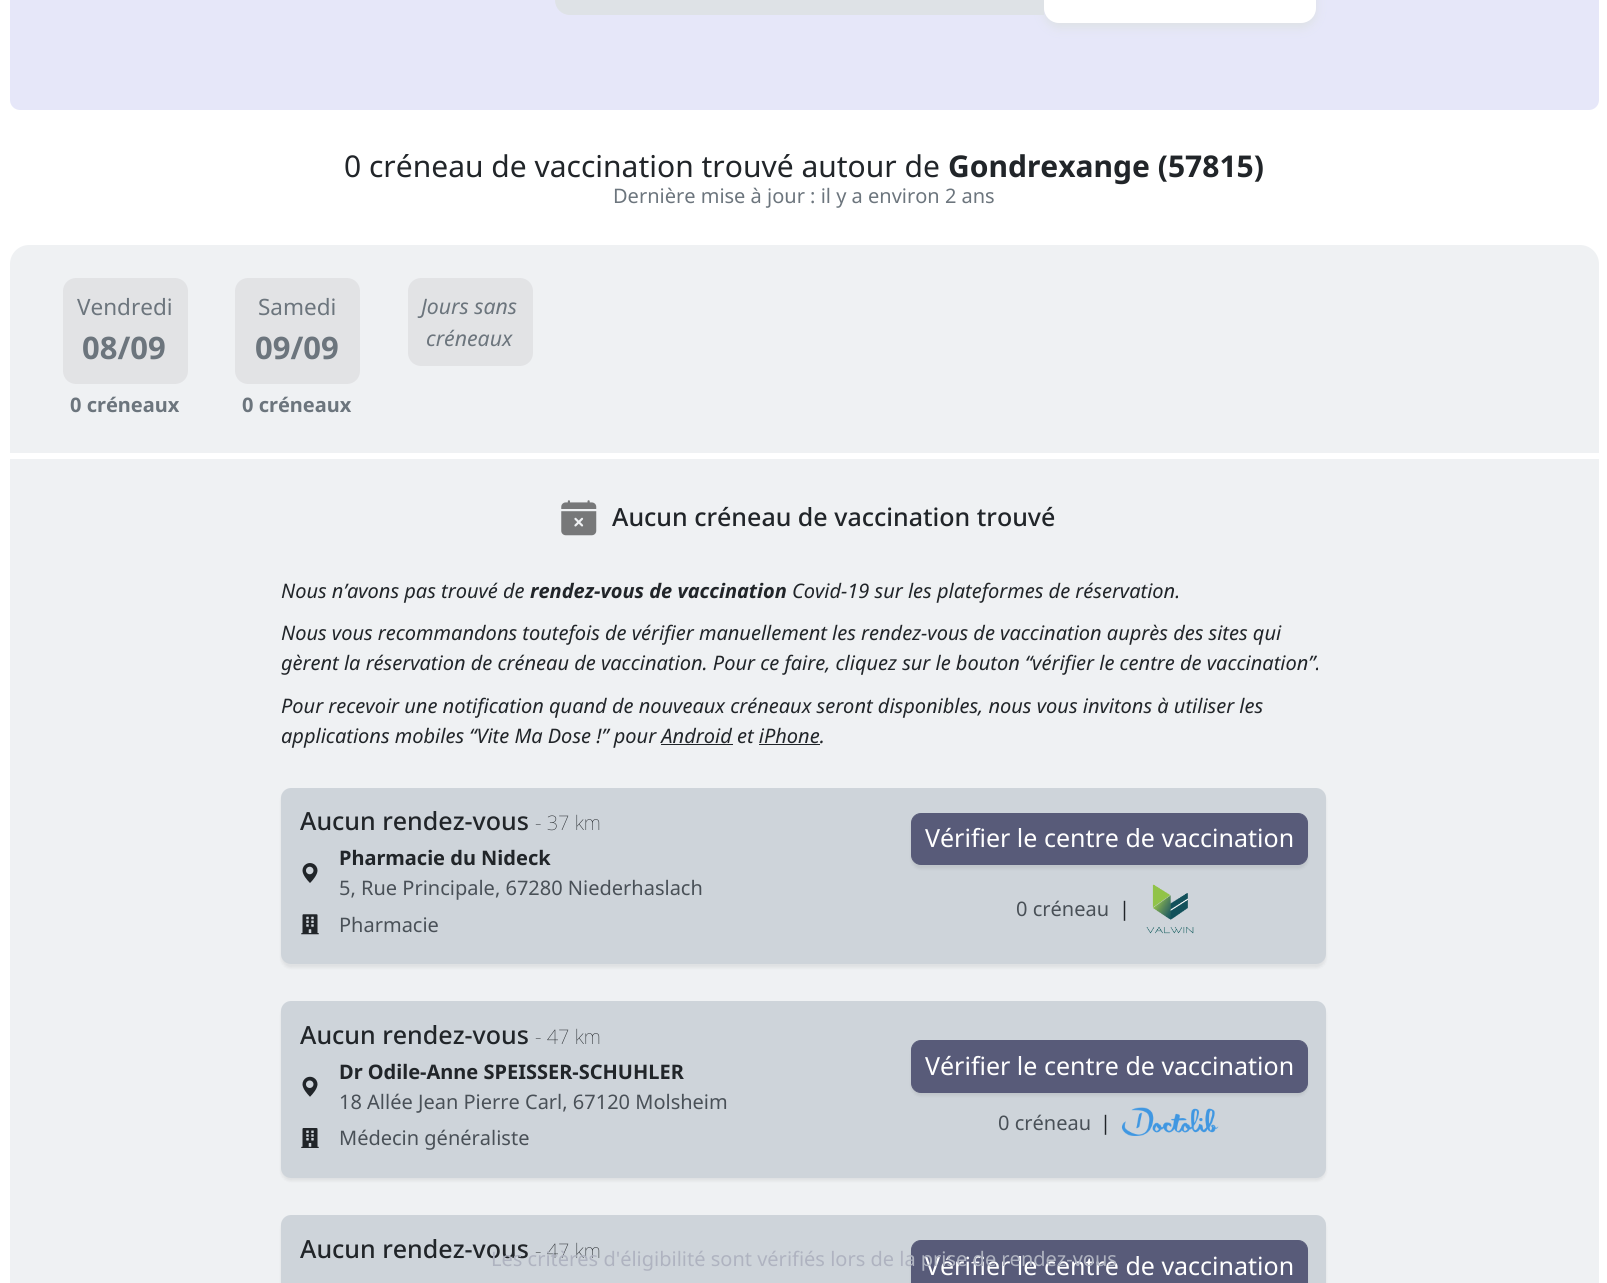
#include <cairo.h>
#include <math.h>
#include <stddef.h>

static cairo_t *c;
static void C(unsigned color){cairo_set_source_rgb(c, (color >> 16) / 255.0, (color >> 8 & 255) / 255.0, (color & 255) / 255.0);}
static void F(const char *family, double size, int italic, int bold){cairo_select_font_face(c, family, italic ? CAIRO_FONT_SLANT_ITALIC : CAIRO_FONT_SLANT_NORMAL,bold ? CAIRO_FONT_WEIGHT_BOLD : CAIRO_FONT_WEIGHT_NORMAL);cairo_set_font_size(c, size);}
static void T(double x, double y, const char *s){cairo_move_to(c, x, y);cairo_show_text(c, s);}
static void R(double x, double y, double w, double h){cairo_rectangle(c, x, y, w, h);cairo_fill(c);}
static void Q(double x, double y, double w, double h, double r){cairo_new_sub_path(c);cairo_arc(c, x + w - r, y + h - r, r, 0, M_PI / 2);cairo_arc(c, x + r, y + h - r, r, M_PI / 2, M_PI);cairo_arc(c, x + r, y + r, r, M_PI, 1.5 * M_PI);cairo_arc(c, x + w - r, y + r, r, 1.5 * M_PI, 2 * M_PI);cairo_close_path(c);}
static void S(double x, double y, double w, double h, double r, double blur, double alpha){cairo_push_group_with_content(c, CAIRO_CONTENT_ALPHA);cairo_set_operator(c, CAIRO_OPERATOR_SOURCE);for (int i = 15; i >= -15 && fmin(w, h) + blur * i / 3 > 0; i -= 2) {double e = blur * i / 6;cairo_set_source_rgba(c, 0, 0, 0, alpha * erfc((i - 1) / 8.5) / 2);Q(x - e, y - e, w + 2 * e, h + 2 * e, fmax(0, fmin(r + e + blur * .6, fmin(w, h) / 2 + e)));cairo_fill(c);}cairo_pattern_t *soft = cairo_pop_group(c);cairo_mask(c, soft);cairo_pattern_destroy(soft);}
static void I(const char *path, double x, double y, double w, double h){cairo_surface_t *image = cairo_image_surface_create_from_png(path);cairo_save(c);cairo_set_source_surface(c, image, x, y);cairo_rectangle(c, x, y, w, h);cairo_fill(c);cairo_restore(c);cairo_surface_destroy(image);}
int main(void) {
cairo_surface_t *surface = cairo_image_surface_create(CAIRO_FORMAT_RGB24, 1607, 1283);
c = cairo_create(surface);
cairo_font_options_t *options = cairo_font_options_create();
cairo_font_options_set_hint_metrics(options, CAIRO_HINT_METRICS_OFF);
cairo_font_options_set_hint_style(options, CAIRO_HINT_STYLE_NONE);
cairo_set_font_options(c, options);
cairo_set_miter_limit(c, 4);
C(0xffffff);
cairo_paint(c);
C(0xe6e7f9);
Q(10,-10,1589,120,10);
cairo_fill(c);
C(0xdee2e6);
cairo_new_path(c);
cairo_move_to(c,570,-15);
cairo_line_to(c,780,-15);
cairo_line_to(c,780,15);
cairo_line_to(c,570,15);
cairo_curve_to(c,561.5,15,555,8.5,555,0);
cairo_curve_to(c,555,-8.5,561.5,-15,570,-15);
cairo_close_path(c);
cairo_fill(c);
R(780,0,264,15);
C(0xdee2e6);
S(1044,-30,272,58,15,5,1);
C(0xffffff);
Q(1044,-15,272,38,15);
cairo_fill(c);
F("Noto Sans",30,0,0);
C(0x212529);
T(344,177,"0 créneau de vaccination trouvé autour de");
F("Noto Sans",30,0,1);
T(948,177,"Gondrexange (57815)");
F("Noto Sans",20,0,0);
C(0x6c757d);
T(613,203,"Dernière mise à jour : il y a environ 2 ans");
C(0xeff1f3);
cairo_new_path(c);
cairo_move_to(c,29,245);
cairo_line_to(c,1580,245);
cairo_curve_to(c,1590.5,245,1599,253.5,1599,264);
cairo_line_to(c,1599,453);
cairo_line_to(c,10,453);
cairo_line_to(c,10,264);
cairo_curve_to(c,10,253.5,18.5,245,29,245);
cairo_close_path(c);
cairo_fill(c);
C(0xe2e3e5);
Q(63,278,125,106,13);
cairo_fill(c);
F("Noto Sans",22.5,0,0);
C(0x6c757d);
T(77,315,"Vendredi");
F("Noto Sans",31,0,1);
T(82,359,"08/09");
F("Noto Sans",20,0,1);
T(70,412,"0 créneaux");
C(0xe2e3e5);
Q(235,278,125,106,13);
cairo_fill(c);
F("Noto Sans",22.5,0,0);
C(0x6c757d);
T(258,315,"Samedi");
F("Noto Sans",31,0,1);
T(255,359,"09/09");
F("Noto Sans",20,0,1);
T(242,412,"0 créneaux");
C(0xe2e3e5);
Q(408,278,125,88,13);
cairo_fill(c);
F("Noto Sans",21.25,1,0);
C(0x6c757d);
T(421,314,"Jours sans");
T(426,346,"créneaux");
C(0xeff1f3);
R(10,459,1589,824);
I("1.png",561,500,36,36);
F("Noto Sans Medium",25,0,0);
C(0x212529);
T(612,526,"Aucun créneau de vaccination trouvé");
F("Noto Sans",20,1,0);
T(281,598,"Nous n’avons pas trouvé de");
F("Noto Sans",20,1,1);
T(530,598,"rendez-vous de vaccination");
F("Noto Sans",20,1,0);
T(792,598,"Covid-19 sur les plateformes de réservation.");
T(281,640,"Nous vous recommandons toutefois de vérifier manuellement les rendez-vous de vaccination auprès des sites qui");
T(281,670,"gèrent la réservation de créneau de vaccination. Pour ce faire, cliquez sur le bouton “vérifier le centre de vaccination”.");
T(281,713,"Pour recevoir une notification quand de nouveaux créneaux seront disponibles, nous vous invitons à utiliser les");
T(281,743,"applications mobiles “Vite Ma Dose !” pour Android et iPhone.");
R(661,744,72,1);
R(759,744,61,1);
C(0x000000);
S(281,791,1045,177,10,1.5,.07);
C(0xced4da);
Q(281,788,1045,176,10);
cairo_fill(c);
F("Noto Sans Medium",25,0,0);
C(0x212529);
T(300,830,"Aucun rendez-vous");
F("Noto Sans Thin",20,0,0);
T(535,830,"- 37 km");
I("2.png",302,863,16,20);
F("Noto Sans",20,0,1);
T(339,865,"Pharmacie du Nideck");
F("Noto Sans",20,0,0);
C(0x495057);
T(339,895,"5, Rue Principale, 67280 Niederhaslach");
I("3.png",301,914,18,21);
T(339,932,"Pharmacie");
C(0x000000);
S(911,816,397,53,10,1.5,.07);
C(0x585b79);
Q(911.5,813.5,396,51,9.5);
cairo_fill_preserve(c);
cairo_set_line_width(c,1);
cairo_stroke(c);
F("Noto Sans",25,0,0);
C(0xffffff);
T(925,847,"Vérifier le centre de vaccination");
F("Noto Sans",20,0,0);
C(0x495057);
T(1016,916,"0 créneau");
C(0x212529);
T(1119,916,"|");
I("4.png",1146,884,48,50);
C(0x000000);
S(281,1005,1045,176,10,1.5,.07);
C(0xced4da);
Q(281,1001,1045,177,10);
cairo_fill(c);
F("Noto Sans Medium",25,0,0);
C(0x212529);
T(300,1044,"Aucun rendez-vous");
F("Noto Sans Thin",20,0,0);
T(535,1044,"- 47 km");
I("5.png",302,1076,16,21);
F("Noto Sans",20,0,1);
T(339,1079,"Dr Odile-Anne SPEISSER-SCHUHLER");
F("Noto Sans",20,0,0);
C(0x495057);
T(339,1109,"18 Allée Jean Pierre Carl, 67120 Molsheim");
I("6.png",301,1128,18,20);
T(339,1145,"Médecin généraliste");
C(0x000000);
S(911,1044,397,52,10,1.5,.07);
C(0x585b79);
Q(911.5,1040.5,396,52,9.5);
cairo_fill_preserve(c);
cairo_stroke(c);
F("Noto Sans",25,0,0);
C(0xffffff);
T(925,1075,"Vérifier le centre de vaccination");
F("Noto Sans",20,0,0);
C(0x495057);
T(998,1130,"0 créneau");
C(0x212529);
T(1100,1130,"|");
I("7.png",1121,1107,98,29);
C(0x000000);
S(281,1219,1045,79,10,1.5,.07);
C(0xced4da);
Q(281,1215,1045,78,10);
cairo_fill(c);
F("Noto Sans Medium",25,0,0);
C(0x212529);
T(300,1258,"Aucun rendez-vous");
F("Noto Sans Thin",20,0,0);
T(535,1258,"- 47 km");
C(0x000000);
S(911,1244,397,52,10,1.5,.07);
C(0x585b79);
Q(911.5,1240.5,396,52,9.5);
cairo_fill_preserve(c);
cairo_stroke(c);
F("Noto Sans",25,0,0);
C(0xffffff);
T(925,1275,"Vérifier le centre de vaccination");
F("Noto Sans",20,0,0);
C(0xafb3c0);
T(491,1266,"Les critères d'éligibilité sont vérifiés lors de la prise de rendez-vous");
cairo_surface_write_to_png(surface, "o.png");
cairo_font_options_destroy(options);
cairo_destroy(c);
cairo_surface_destroy(surface);
return 0;
}
